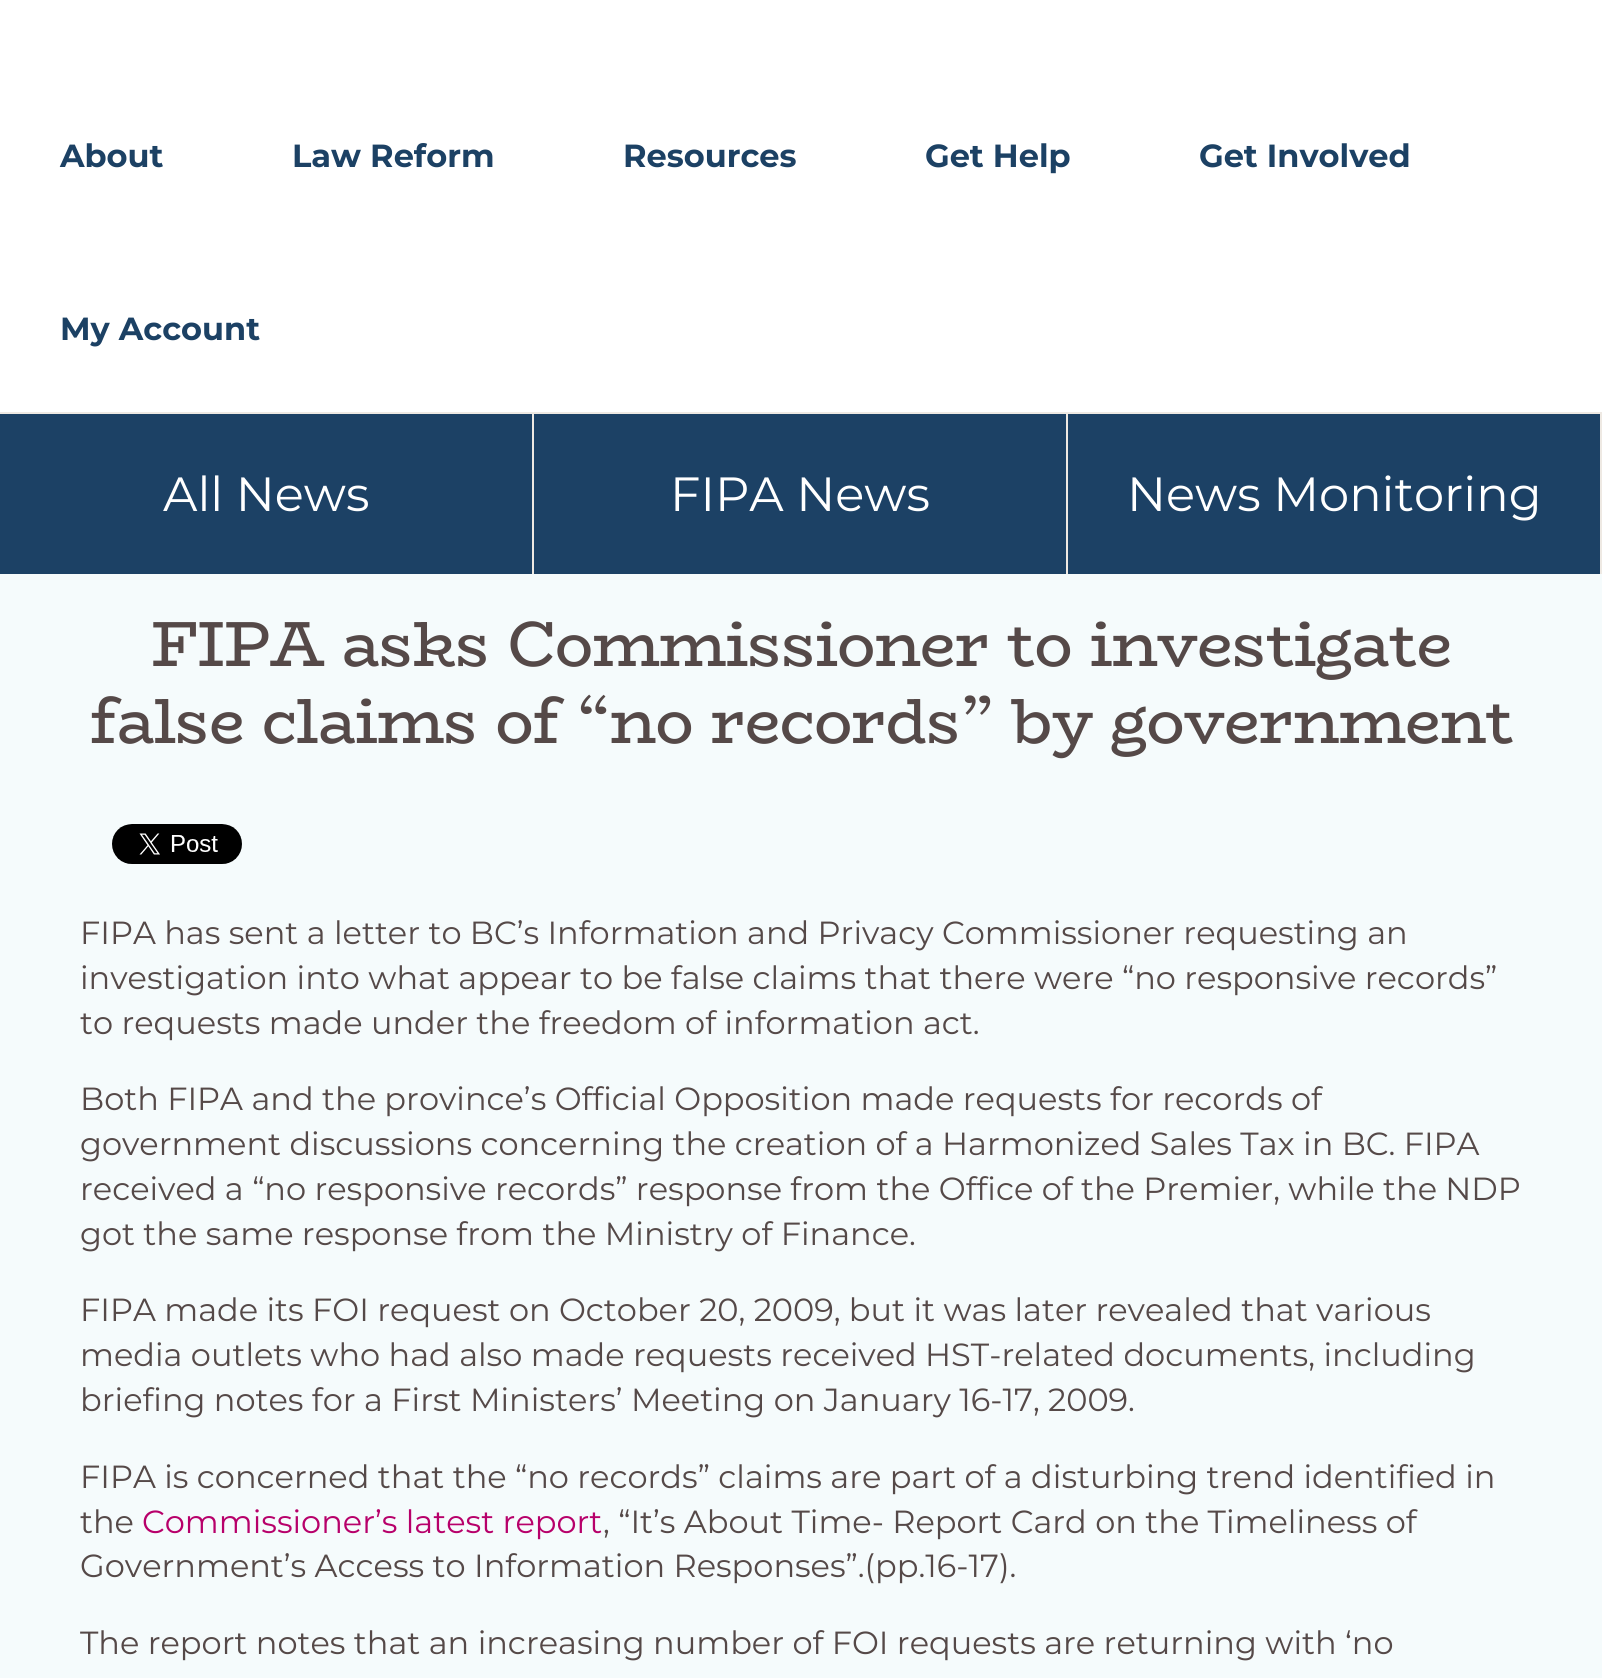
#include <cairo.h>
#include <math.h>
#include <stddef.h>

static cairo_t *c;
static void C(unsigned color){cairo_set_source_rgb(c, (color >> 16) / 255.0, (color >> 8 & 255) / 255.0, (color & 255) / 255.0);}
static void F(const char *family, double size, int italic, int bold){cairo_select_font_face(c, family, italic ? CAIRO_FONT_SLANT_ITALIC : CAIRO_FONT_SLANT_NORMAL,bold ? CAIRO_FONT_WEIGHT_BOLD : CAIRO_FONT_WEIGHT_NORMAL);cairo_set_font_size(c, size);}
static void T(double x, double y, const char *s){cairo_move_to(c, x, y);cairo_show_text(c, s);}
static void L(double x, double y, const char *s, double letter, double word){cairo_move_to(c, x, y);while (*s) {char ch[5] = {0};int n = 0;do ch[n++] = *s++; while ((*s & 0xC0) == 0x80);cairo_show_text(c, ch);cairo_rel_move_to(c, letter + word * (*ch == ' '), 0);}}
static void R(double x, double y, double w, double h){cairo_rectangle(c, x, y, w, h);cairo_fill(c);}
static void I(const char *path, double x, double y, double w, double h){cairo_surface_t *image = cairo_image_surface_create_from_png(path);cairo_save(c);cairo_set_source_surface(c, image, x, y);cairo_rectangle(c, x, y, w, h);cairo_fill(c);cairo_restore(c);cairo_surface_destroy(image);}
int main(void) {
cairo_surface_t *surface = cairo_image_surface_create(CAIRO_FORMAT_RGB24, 1602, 1678);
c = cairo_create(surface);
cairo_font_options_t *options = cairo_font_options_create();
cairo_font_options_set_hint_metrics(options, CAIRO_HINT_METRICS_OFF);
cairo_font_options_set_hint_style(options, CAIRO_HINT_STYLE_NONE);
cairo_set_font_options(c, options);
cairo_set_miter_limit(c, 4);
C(0xf5fbfc);
cairo_paint(c);
C(0xffffff);
R(0,0,1602,412);
C(0xeee9e3);
R(0,412,1602,2);
F("Montserrat",32,0,1);
C(0x1c4164);
T(60,167,"About");
T(292,167,"Law Reform");
T(623,167,"Resources");
T(925,167,"Get Help");
T(1199,167,"Get Involved");
T(60,340,"My Account");
C(0x1c4165);
R(0,414,1600,160);
C(0xeee9e3);
R(532,414,2,160);
F("Montserrat",48,0,0);
C(0xffffff);
T(163,511,"All News");
C(0xeee9e3);
R(1066,414,2,160);
C(0xffffff);
T(670,511,"FIPA News");
C(0xeee9e3);
R(1600,414,2,160);
C(0xffffff);
T(1127,511,"News Monitoring");
F("BioRhyme",64,0,0);
C(0x554948);
L(151,666,"FIPA asks Commissioner to investigate",-1,0);
L(90,743,"false claims of “no records” by government",-1,0);
I("1.png",112,824,130,40);
F("Montserrat",32,0,0);
T(80,944,"FIPA has sent a letter to BC’s Information and Privacy Commissioner requesting an");
T(80,989,"investigation into what appear to be false claims that there were “no responsive records”");
T(80,1034,"to requests made under the freedom of information act.");
T(80,1110,"Both FIPA and the province’s Official Opposition made requests for records of");
T(80,1155,"government discussions concerning the creation of a Harmonized Sales Tax in BC. FIPA");
T(80,1200,"received a “no responsive records” response from the Office of the Premier, while the NDP");
T(80,1245,"got the same response from the Ministry of Finance.");
T(80,1321,"FIPA made its FOI request on October 20, 2009, but it was later revealed that various");
T(80,1366,"media outlets who had also made requests received HST-related documents, including");
T(80,1411,"briefing notes for a First Ministers’ Meeting on January 16-17, 2009.");
T(80,1488,"FIPA is concerned that the “no records” claims are part of a disturbing trend identified in");
T(80,1533,"the");
C(0xb7006a);
T(142,1533,"Commissioner’s latest report");
C(0x554948);
T(603,1533,", “It’s About Time- Report Card on the Timeliness of");
T(80,1577,"Government’s Access to Information Responses”.(pp.16-17).");
T(80,1654,"The report notes that an increasing number of FOI requests are returning with ‘no");
cairo_surface_write_to_png(surface, "o.png");
cairo_font_options_destroy(options);
cairo_destroy(c);
cairo_surface_destroy(surface);
return 0;
}
